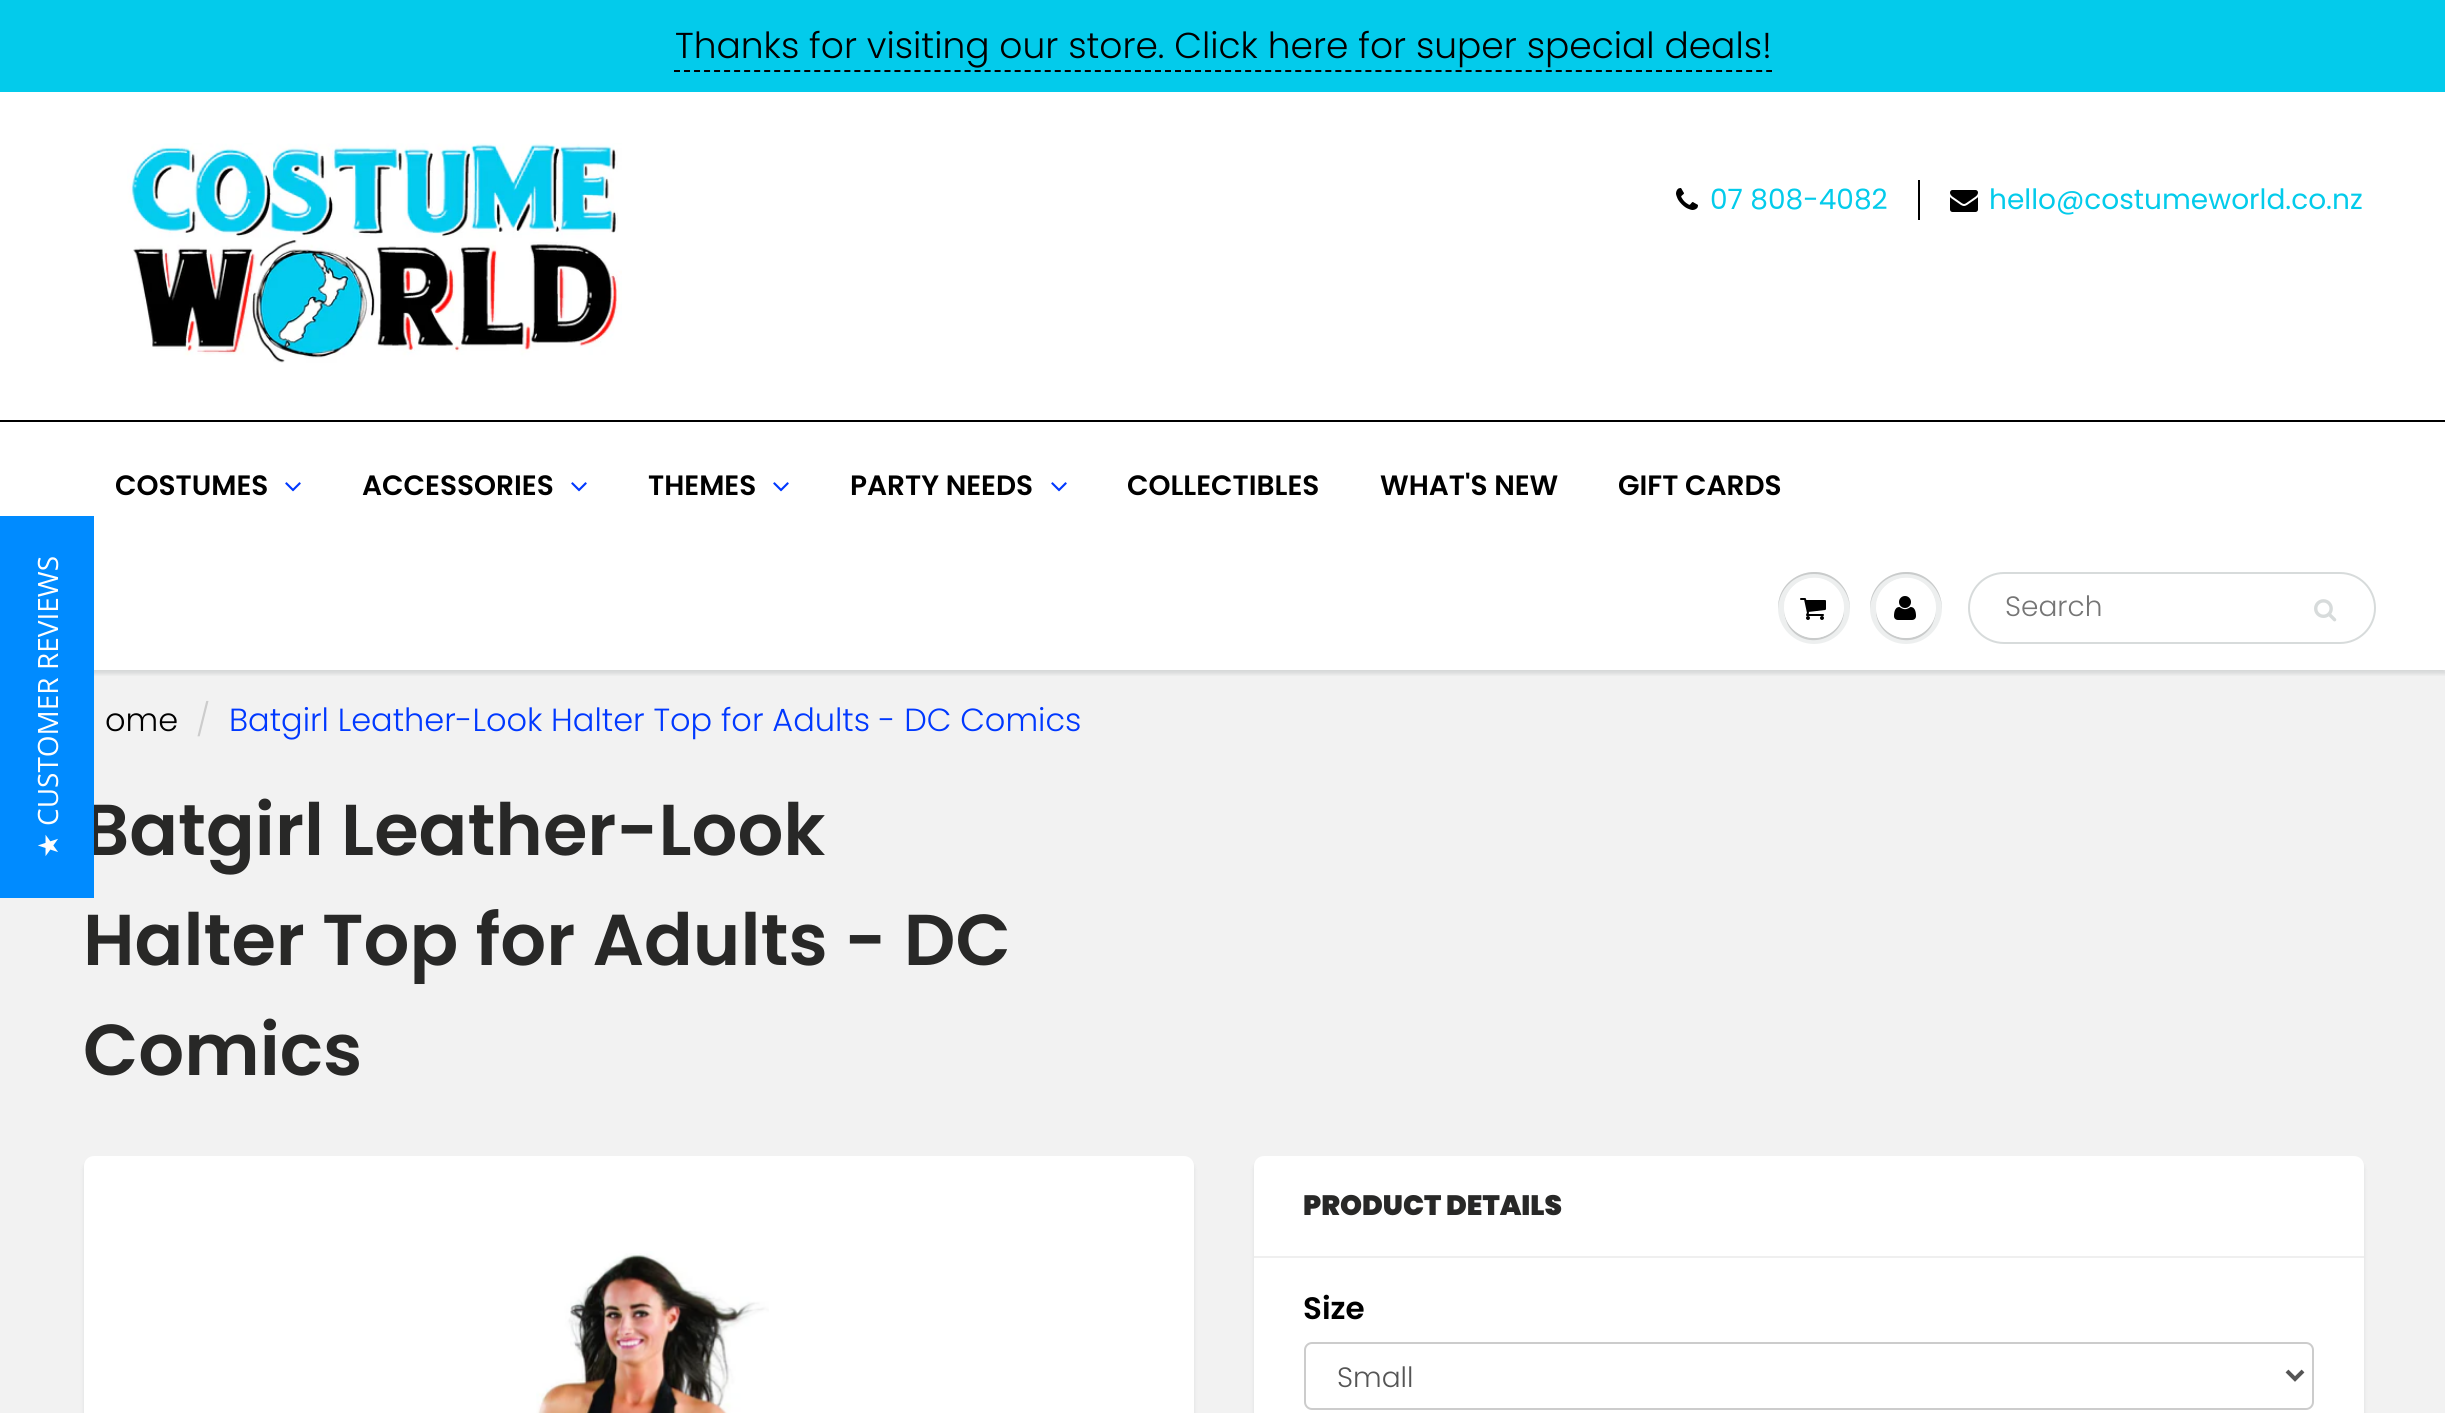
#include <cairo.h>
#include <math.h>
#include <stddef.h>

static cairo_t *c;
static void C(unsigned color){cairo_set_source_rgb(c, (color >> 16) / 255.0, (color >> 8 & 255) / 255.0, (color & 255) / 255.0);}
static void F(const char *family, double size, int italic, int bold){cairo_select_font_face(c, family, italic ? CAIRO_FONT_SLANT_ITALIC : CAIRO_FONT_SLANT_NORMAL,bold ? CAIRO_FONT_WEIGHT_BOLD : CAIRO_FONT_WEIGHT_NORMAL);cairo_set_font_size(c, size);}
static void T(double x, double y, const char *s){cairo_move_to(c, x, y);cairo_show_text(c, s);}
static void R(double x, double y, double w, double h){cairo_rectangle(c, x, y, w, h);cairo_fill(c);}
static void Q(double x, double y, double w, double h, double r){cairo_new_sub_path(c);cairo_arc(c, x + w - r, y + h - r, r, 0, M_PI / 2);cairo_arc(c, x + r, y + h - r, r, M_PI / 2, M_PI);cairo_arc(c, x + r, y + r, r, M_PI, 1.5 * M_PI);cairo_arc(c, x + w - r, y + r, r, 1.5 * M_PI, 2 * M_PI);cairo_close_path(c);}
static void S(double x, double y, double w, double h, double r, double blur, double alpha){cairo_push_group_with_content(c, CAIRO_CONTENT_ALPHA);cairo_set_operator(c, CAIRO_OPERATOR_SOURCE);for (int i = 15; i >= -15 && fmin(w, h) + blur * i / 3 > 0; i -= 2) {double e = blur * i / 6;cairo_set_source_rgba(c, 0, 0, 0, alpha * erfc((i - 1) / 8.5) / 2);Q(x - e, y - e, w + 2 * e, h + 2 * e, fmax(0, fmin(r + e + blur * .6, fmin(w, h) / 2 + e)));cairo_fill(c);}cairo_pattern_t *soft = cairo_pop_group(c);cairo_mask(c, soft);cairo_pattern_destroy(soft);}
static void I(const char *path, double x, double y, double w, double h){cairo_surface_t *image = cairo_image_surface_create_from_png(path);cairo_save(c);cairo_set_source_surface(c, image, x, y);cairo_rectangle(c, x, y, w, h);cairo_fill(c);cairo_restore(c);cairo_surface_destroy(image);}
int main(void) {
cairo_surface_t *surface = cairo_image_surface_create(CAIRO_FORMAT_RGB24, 2445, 1413);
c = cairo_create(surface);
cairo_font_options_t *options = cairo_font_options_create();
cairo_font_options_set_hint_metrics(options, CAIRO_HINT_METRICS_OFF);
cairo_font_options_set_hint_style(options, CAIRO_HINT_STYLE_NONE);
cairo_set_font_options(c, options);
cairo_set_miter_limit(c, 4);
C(0xffffff);
cairo_paint(c);
C(0xf2f2f2);
R(0,670,2445,743);
cairo_save(c);
cairo_rectangle(c,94,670,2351,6);
cairo_clip(c);
C(0x0b191c);
S(0,424,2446,250,0,2,.12);
cairo_restore(c);
F("Poppins SemiBold",72,0,0);
C(0x282827);
T(83,855,"Batgirl Leather-Look");
C(0x008bff);
R(0,516,94,382);
F("Open Sans",28,0,0);
C(0xfefefe);
cairo_save(c);
cairo_translate(c,58,826);
cairo_rotate(c,-90 * M_PI / 180);
T(0,0,"CUSTOMER REVIEWS");
cairo_restore(c);
F("DejaVu Sans",28,0,0);
cairo_save(c);
cairo_translate(c,58,858);
cairo_rotate(c,-90 * M_PI / 180);
T(0,0,"★");
cairo_restore(c);
C(0x03cbeb);
R(0,0,2445,92);
F("Poppins Light",36,0,0);
C(0x000000);
T(675,58,"Thanks for visiting our store. Click here for super special deals!");
cairo_new_path(c);
cairo_move_to(c,674,71);
cairo_line_to(c,1772,71);
cairo_set_dash(c,(double[]){6,4.02},2,0);
cairo_stroke(c);
I("1.png",127,143,495,220);
I("2.png",1676,188,22,22);
F("Poppins",28,0,0);
C(0x03cbeb);
T(1710,209,"07 808-4082");
C(0x000000);
R(1918,180,2,40);
I("3.png",1950,190,28,22);
C(0x03cbeb);
T(1989,209,"hello@costumeworld.co.nz");
C(0x000000);
R(0,420,2445,2);
F("Poppins SemiBold",28,0,0);
T(115,495,"COSTUMES");
I("4.png",285,482,16,10);
T(362,495,"ACCESSORIES");
I("4.png",571,482,16,10);
T(648,495,"THEMES");
I("4.png",773,482,16,10);
T(850,495,"PARTY NEEDS");
I("4.png",1051,482,16,10);
T(1127,495,"COLLECTIBLES");
T(1380,495,"WHAT'S NEW");
T(1618,495,"GIFT CARDS");
C(0xedefef);
cairo_new_path(c);
cairo_arc(c,1814,608,36,0,2 * M_PI);
cairo_fill(c);
C(0xc9cbcb);
cairo_new_path(c);
cairo_move_to(c,1844,609);
cairo_curve_to(c,1843,625,1830,638,1814,638);
cairo_curve_to(c,1798,638,1785,625,1784,609);
cairo_curve_to(c,1784,615,1786,622,1789,627);
cairo_curve_to(c,1806,652,1845,639,1844,609);
cairo_close_path(c);
cairo_fill(c);
cairo_new_path(c);
cairo_move_to(c,1814,574);
cairo_curve_to(c,1834,574,1849,589,1850,609);
cairo_curve_to(c,1850,602,1848,594,1844,588);
cairo_curve_to(c,1824,558,1777,573,1778,609);
cairo_curve_to(c,1779,589,1794,574,1814,574);
cairo_close_path(c);
cairo_fill(c);
C(0xffffff);
cairo_arc(c,1814,608,30,0,2 * M_PI);
cairo_fill(c);
cairo_new_path(c);
cairo_move_to(c,1814,580);
cairo_curve_to(c,1831,580,1843,592,1844,609);
cairo_curve_to(c,1844,603,1842,596,1839,591);
cairo_curve_to(c,1822,566,1783,579,1784,609);
cairo_curve_to(c,1785,592,1797,580,1814,580);
cairo_close_path(c);
cairo_fill(c);
I("5.png",1800,598,26,22);
C(0xedefef);
cairo_arc(c,1906,608,36,0,2 * M_PI);
cairo_fill(c);
C(0xc9cbcb);
cairo_new_path(c);
cairo_move_to(c,1936,609);
cairo_curve_to(c,1935,625,1922,638,1906,638);
cairo_curve_to(c,1890,638,1877,625,1876,609);
cairo_curve_to(c,1875,639,1914,652,1931,627);
cairo_curve_to(c,1934,622,1936,615,1936,609);
cairo_close_path(c);
cairo_fill(c);
cairo_new_path(c);
cairo_move_to(c,1906,574);
cairo_curve_to(c,1926,574,1941,589,1942,609);
cairo_curve_to(c,1942,602,1940,594,1936,588);
cairo_curve_to(c,1916,558,1869,573,1870,609);
cairo_curve_to(c,1871,589,1886,574,1906,574);
cairo_close_path(c);
cairo_fill(c);
C(0xffffff);
cairo_arc(c,1906,608,30,0,2 * M_PI);
cairo_fill(c);
cairo_new_path(c);
cairo_move_to(c,1906,580);
cairo_curve_to(c,1923,580,1935,592,1936,609);
cairo_curve_to(c,1936,603,1934,596,1931,591);
cairo_curve_to(c,1914,566,1875,579,1876,609);
cairo_curve_to(c,1877,592,1889,580,1906,580);
cairo_close_path(c);
cairo_fill(c);
I("6.png",1894,596,22,24);
Q(1969,573,406,70,35);
C(0xd7dbdb);
cairo_set_dash(c,NULL,0,0);
cairo_stroke(c);
F("Poppins Light",28,0,0);
C(0x757575);
T(2005,616,"Search");
I("7.png",2314,599,23,23);
F("Poppins Light",32,0,0);
C(0x000000);
T(105,731,"ome");
C(0xcccccc);
T(196,731,"/");
C(0x0038ff);
T(229,731,"Batgirl Leather-Look Halter Top for Adults - DC Comics");
F("Poppins SemiBold",72,0,0);
C(0x282827);
T(83,965,"Halter Top for Adults - DC");
T(83,1075,"Comics");
C(0x0b191c);
S(84,1160,1110,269,10,2,.1);
C(0xffffff);
Q(84,1156,1110,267,10);
cairo_fill(c);
I("8.png",536,1251,233,162);
C(0x0b191c);
S(1254,1160,1110,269,10,2,.1);
C(0xffffff);
Q(1254,1156,1110,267,10);
cairo_fill(c);
C(0xefefef);
R(1254,1256,1110,2);
F("Poppins Black",28,0,0);
C(0x282827);
T(1303,1215,"PRODUCT DETAILS");
F("Poppins SemiBold",31,0,0);
C(0x000000);
T(1303,1319,"Size");
Q(1305,1343,1008,66,7);
C(0xcccccc);
cairo_stroke(c);
cairo_new_path(c);
cairo_move_to(c,2287,1371);
cairo_line_to(c,2295,1379);
cairo_line_to(c,2303,1371);
C(0x555555);
cairo_set_line_width(c,4);
cairo_stroke(c);
F("Poppins Light",28,0,0);
T(1337,1387,"Small");
cairo_surface_write_to_png(surface, "o.png");
cairo_font_options_destroy(options);
cairo_destroy(c);
cairo_surface_destroy(surface);
return 0;
}
